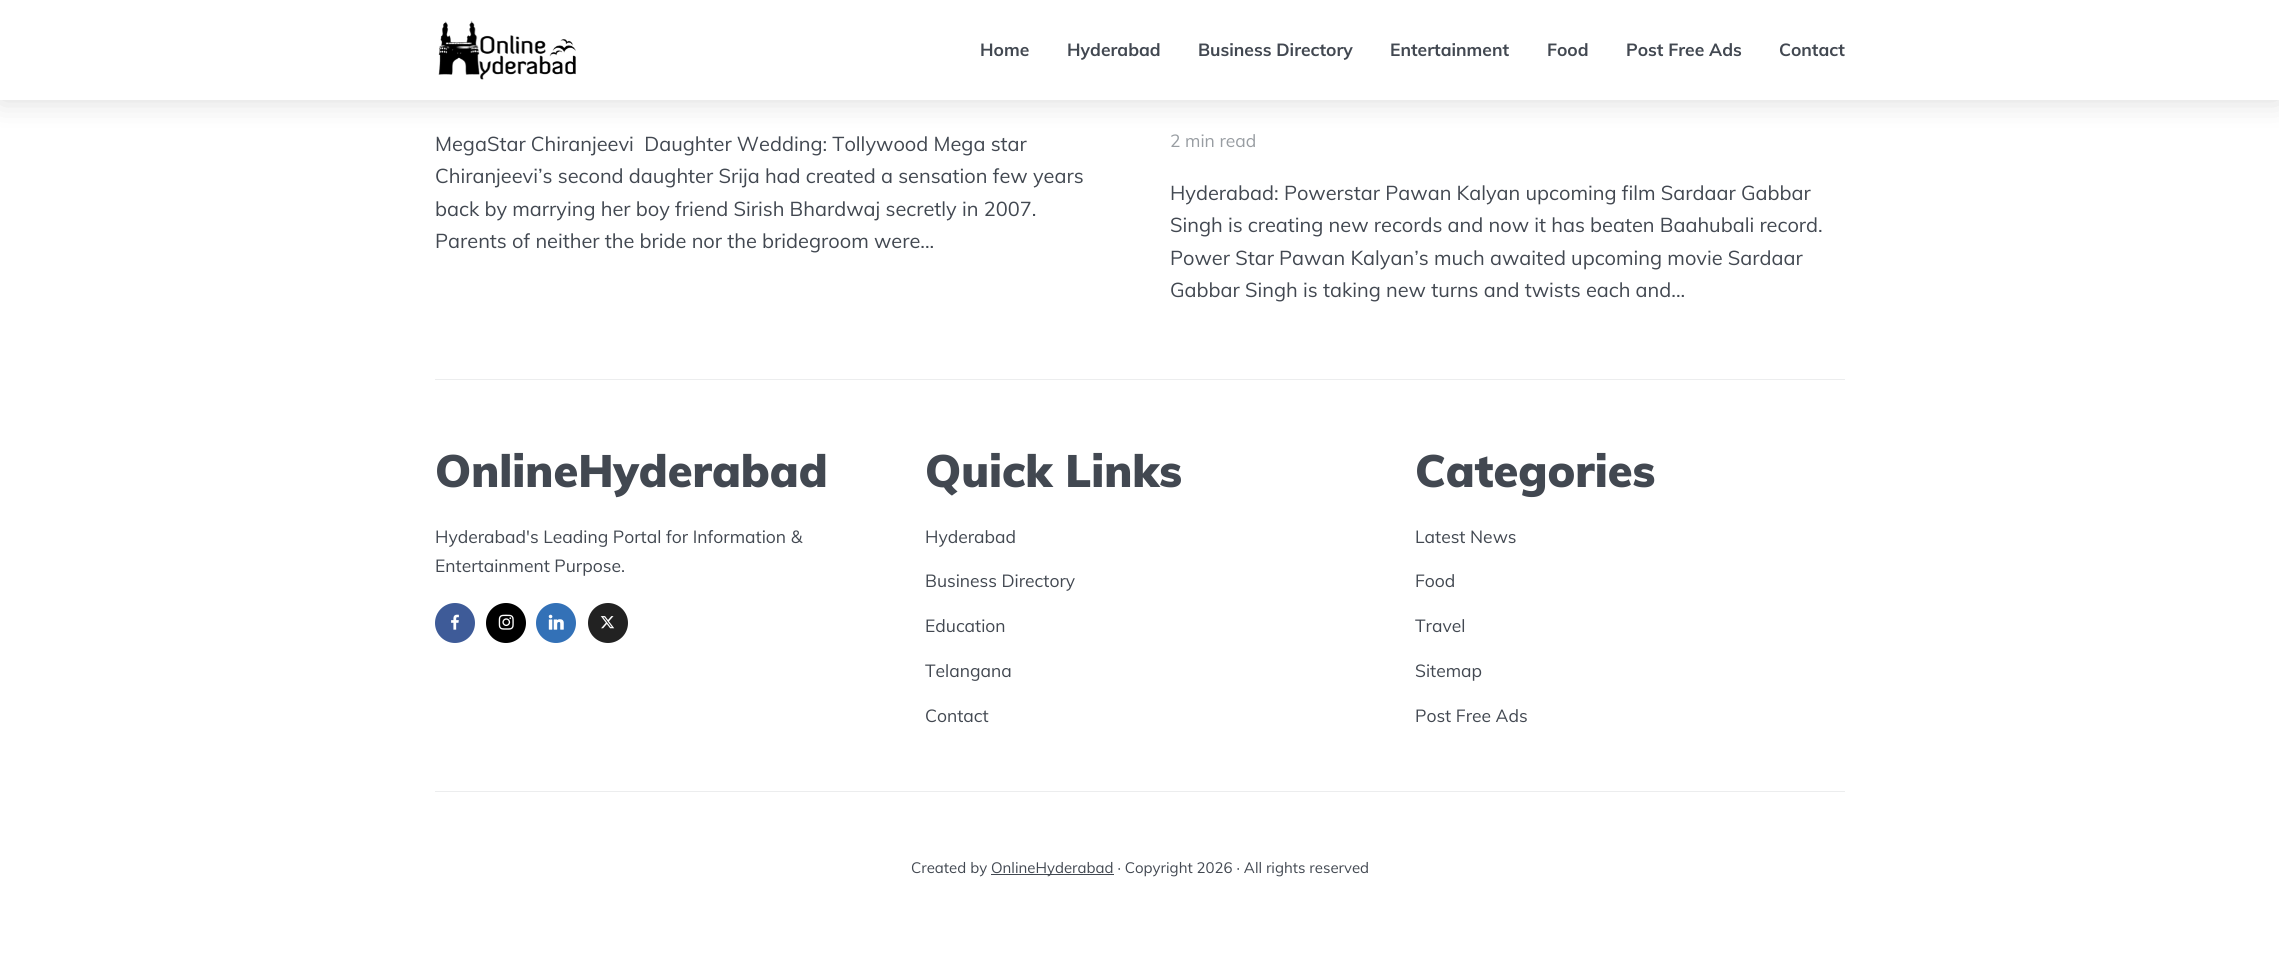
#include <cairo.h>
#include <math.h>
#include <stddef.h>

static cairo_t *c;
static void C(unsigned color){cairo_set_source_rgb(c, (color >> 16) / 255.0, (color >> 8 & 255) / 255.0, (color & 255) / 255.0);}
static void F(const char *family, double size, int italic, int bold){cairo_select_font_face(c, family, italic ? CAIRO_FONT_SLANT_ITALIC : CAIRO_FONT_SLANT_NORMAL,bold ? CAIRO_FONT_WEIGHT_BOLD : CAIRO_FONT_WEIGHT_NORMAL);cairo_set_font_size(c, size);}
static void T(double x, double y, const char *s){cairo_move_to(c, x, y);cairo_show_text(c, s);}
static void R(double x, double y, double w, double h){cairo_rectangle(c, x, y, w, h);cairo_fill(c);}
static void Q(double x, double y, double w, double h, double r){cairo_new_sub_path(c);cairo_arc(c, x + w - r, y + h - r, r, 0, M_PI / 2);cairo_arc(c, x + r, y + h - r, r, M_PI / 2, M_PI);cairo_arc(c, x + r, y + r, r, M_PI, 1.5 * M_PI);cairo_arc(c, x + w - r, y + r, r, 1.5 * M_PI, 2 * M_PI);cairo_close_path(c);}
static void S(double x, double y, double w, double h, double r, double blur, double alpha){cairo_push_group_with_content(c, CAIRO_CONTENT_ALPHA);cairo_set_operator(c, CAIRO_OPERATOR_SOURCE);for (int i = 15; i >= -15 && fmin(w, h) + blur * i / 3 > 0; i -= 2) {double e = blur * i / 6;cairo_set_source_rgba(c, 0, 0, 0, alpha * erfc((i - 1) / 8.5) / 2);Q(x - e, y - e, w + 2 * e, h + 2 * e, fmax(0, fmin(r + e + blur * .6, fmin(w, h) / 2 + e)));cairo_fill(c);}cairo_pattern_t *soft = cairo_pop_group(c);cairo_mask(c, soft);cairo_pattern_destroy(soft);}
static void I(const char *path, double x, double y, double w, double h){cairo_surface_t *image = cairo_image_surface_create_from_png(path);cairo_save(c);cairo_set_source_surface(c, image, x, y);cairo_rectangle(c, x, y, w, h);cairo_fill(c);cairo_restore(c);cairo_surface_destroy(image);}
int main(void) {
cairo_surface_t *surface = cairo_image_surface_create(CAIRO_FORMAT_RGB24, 2279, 954);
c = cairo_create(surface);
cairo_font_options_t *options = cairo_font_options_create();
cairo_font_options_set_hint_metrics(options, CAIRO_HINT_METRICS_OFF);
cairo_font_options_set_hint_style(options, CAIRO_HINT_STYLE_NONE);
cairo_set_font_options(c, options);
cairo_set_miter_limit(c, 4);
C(0xffffff);
cairo_paint(c);
C(0x000000);
S(0,0,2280,100,0,15.5,.15);
C(0xffffff);
R(0,0,2279,100);
I("1.png",438,20,138,60);
F("Muli",17.5,0,1);
C(0x424851);
T(980,56,"Home");
T(1067,56,"Hyderabad");
T(1198,56,"Business Directory");
T(1390,56,"Entertainment");
T(1547,56,"Food");
T(1626,56,"Post Free Ads");
T(1779,56,"Contact");
F("Muli",20,0,0);
T(435,151,"MegaStar Chiranjeevi  Daughter Wedding: Tollywood Mega star");
T(435,183,"Chiranjeevi’s second daughter Srija had created a sensation few years");
T(435,216,"back by marrying her boy friend Sirish Bhardwaj secretly in 2007.");
T(435,248,"Parents of neither the bride nor the bridegroom were...");
F("Muli",17.5,0,0);
C(0x989da2);
T(1170,147,"2 min read");
F("Muli",20,0,0);
C(0x424851);
T(1170,200,"Hyderabad: Powerstar Pawan Kalyan upcoming film Sardaar Gabbar");
T(1170,232,"Singh is creating new records and now it has beaten Baahubali record.");
T(1170,265,"Power Star Pawan Kalyan’s much awaited upcoming movie Sardaar");
T(1170,297,"Gabbar Singh is taking new turns and twists each and...");
C(0xecedee);
R(435,379,1410,1);
F("Muli Black",45,0,0);
C(0x424851);
T(435,487,"OnlineHyderabad");
F("Muli",17.5,0,0);
T(435,543,"Hyderabad's Leading Portal for Information &");
T(435,572,"Entertainment Purpose.");
C(0x3e5b98);
cairo_new_path(c);
cairo_arc(c,455,623,20,0,2 * M_PI);
cairo_fill(c);
I("2.png",451,614,8,16);
C(0x000000);
cairo_arc(c,506,623,20,0,2 * M_PI);
cairo_fill(c);
I("3.png",498,614,16,16);
C(0x3371b7);
cairo_arc(c,556,623,20,0,2 * M_PI);
cairo_fill(c);
I("4.png",548,614,16,16);
C(0x222222);
cairo_arc(c,608,623,20,0,2 * M_PI);
cairo_fill(c);
I("5.png",600,616,15,13);
F("Muli Black",45,0,0);
C(0x424851);
T(925,487,"Quick Links");
F("Muli",17.5,0,0);
T(925,543,"Hyderabad");
T(925,587,"Business Directory");
T(925,632,"Education");
T(925,677,"Telangana");
T(925,722,"Contact");
F("Muli Black",45,0,0);
T(1415,487,"Categories");
F("Muli",17.5,0,0);
T(1415,543,"Latest News");
T(1415,587,"Food");
T(1415,632,"Travel");
T(1415,677,"Sitemap");
T(1415,722,"Post Free Ads");
C(0xecedee);
R(435,791,1410,1);
F("Muli",15,0,0);
C(0x424851);
T(911,873,"Created by");
R(991,874,123,1);
T(991,873,"OnlineHyderabad · Copyright 2026 · All rights reserved");
cairo_surface_write_to_png(surface, "o.png");
cairo_font_options_destroy(options);
cairo_destroy(c);
cairo_surface_destroy(surface);
return 0;
}
